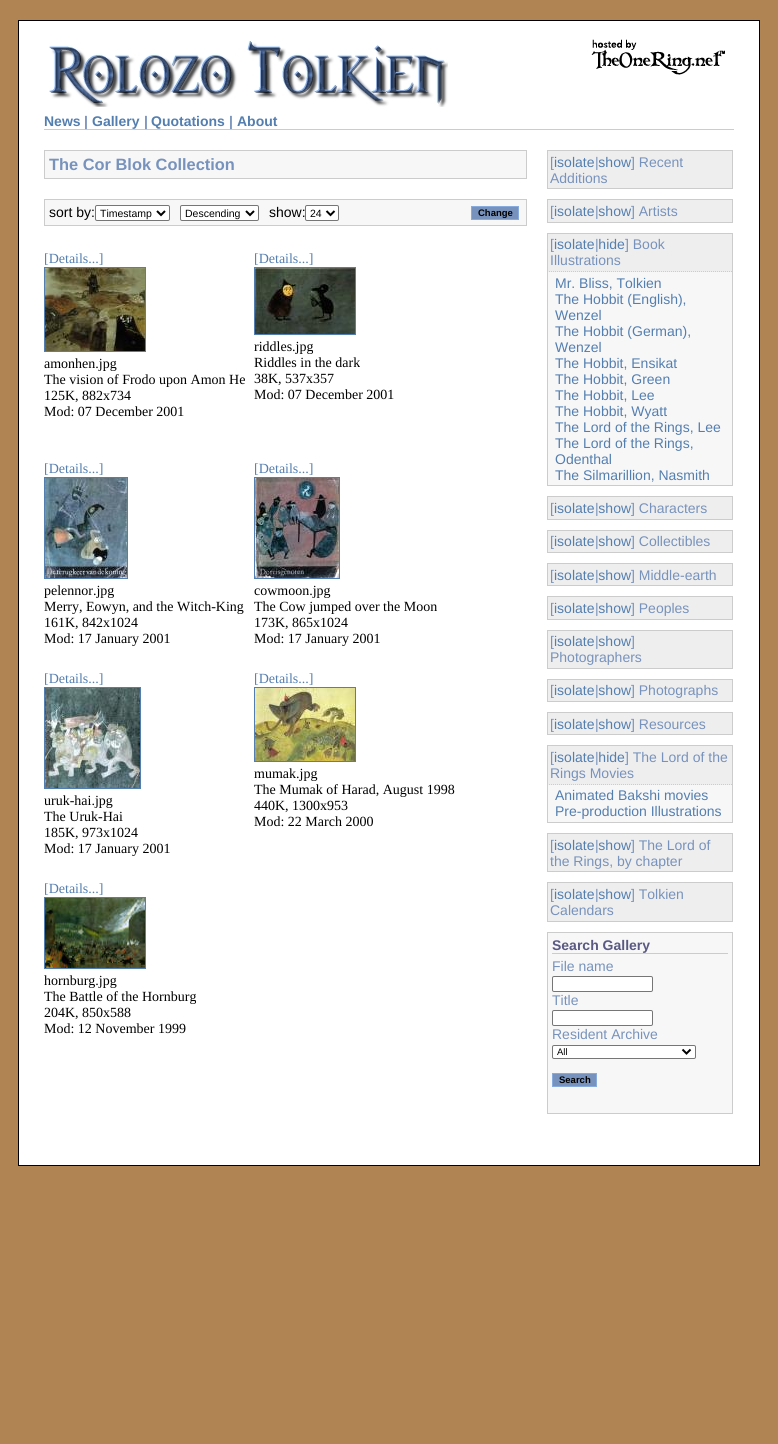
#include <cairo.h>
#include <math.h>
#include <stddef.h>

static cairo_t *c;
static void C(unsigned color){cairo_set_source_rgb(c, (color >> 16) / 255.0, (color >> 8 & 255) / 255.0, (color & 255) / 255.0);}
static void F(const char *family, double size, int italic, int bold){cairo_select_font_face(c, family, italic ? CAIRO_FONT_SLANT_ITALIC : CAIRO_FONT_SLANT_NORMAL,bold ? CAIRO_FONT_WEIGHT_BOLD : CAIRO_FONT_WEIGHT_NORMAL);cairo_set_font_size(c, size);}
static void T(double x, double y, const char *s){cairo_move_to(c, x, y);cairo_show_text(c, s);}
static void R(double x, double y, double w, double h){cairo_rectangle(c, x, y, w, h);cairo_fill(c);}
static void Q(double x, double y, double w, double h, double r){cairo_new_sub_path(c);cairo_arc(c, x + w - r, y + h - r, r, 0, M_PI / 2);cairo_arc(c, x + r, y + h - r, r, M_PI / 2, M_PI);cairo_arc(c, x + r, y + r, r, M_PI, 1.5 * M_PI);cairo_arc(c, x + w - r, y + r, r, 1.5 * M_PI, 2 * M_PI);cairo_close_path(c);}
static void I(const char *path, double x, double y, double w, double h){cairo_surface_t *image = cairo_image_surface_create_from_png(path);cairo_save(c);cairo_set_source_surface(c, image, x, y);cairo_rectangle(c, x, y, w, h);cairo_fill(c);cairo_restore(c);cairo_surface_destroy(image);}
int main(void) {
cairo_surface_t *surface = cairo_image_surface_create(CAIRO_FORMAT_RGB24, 778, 1444);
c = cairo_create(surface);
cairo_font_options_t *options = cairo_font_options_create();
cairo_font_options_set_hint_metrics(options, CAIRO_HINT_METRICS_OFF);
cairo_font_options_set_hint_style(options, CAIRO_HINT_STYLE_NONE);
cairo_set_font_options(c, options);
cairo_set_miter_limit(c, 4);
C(0xb08553);
cairo_paint(c);
C(0xffffff);
cairo_rectangle(c,18.5,20.5,741,1145);
cairo_fill_preserve(c);
C(0x000000);
cairo_set_line_width(c,1);
cairo_stroke(c);
I("1.png",49,40,399,67);
I("2.png",591,39,134,36);
C(0xcccccc);
R(44,129,690,1);
F("Liberation Sans",14,0,1);
C(0x537eb0);
T(44,126,"News");
C(0x7792bc);
T(84,126,"|");
C(0x537eb0);
T(92,126,"Gallery");
C(0x7792bc);
T(144,126,"|");
C(0x537eb0);
T(151,126,"Quotations");
C(0x7792bc);
T(229,126,"|");
C(0x537eb0);
T(237,126,"About");
C(0xf7f7f7);
cairo_rectangle(c,44.5,150.5,482,28);
cairo_fill_preserve(c);
C(0xcccccc);
cairo_stroke(c);
F("Liberation Sans",16.4,0,1);
C(0x7792bc);
T(49,170,"The Cor Blok Collection");
C(0xf7f7f7);
cairo_rectangle(c,44.5,199.5,482,26);
cairo_fill_preserve(c);
C(0xcccccc);
cairo_stroke(c);
F("Liberation Sans",14,0,0);
C(0x000000);
T(49,217,"sort by:");
C(0xffffff);
Q(95.5,205.5,74,15,1.5);
cairo_fill_preserve(c);
C(0x767676);
cairo_stroke(c);
cairo_new_path(c);
cairo_move_to(c,157,211);
cairo_line_to(c,161,215);
cairo_line_to(c,165,211);
C(0x000000);
cairo_set_line_width(c,2);
cairo_stroke(c);
F("Liberation Sans",10.5,0,0);
T(100,217,"Timestamp");
C(0xffffff);
Q(180.5,205.5,78,15,1.5);
cairo_fill_preserve(c);
C(0x767676);
cairo_set_line_width(c,1);
cairo_stroke(c);
cairo_new_path(c);
cairo_move_to(c,246,211);
cairo_line_to(c,250,215);
cairo_line_to(c,254,211);
C(0x000000);
cairo_set_line_width(c,2);
cairo_stroke(c);
T(185,217,"Descending");
F("Liberation Sans",14,0,0);
T(269,217,"show:");
C(0xffffff);
Q(305.5,205.5,33,15,1.5);
cairo_fill_preserve(c);
C(0x767676);
cairo_set_line_width(c,1);
cairo_stroke(c);
cairo_new_path(c);
cairo_move_to(c,326.5,211);
cairo_line_to(c,330.5,215);
cairo_line_to(c,334.5,211);
C(0x000000);
cairo_set_line_width(c,2);
cairo_stroke(c);
F("Liberation Sans",10.5,0,0);
T(310,217,"24");
C(0x7792bc);
cairo_rectangle(c,471.5,206.5,47,13);
cairo_fill_preserve(c);
C(0x88aadd);
cairo_set_line_width(c,1);
cairo_stroke(c);
F("Liberation Sans",9.5,0,1);
C(0x000000);
T(478,216,"Change");
F("Liberation Serif",14,0,0);
C(0x537eb0);
T(44,263,"[Details...]");
cairo_rectangle(c,44.5,267.5,101,84);
cairo_stroke(c);
I("3.png",45,268,100,83);
C(0x000000);
T(44,368,"amonhen.jpg");
T(44,384,"The vision of Frodo upon Amon He");
T(44,400,"125K, 882x734");
T(44,416,"Mod: 07 December 2001");
C(0x537eb0);
T(254,263,"[Details...]");
cairo_rectangle(c,254.5,267.5,101,67);
cairo_stroke(c);
I("4.png",255,268,100,66);
C(0x000000);
T(254,351,"riddles.jpg");
T(254,367,"Riddles in the dark");
T(254,383,"38K, 537x357");
T(254,399,"Mod: 07 December 2001");
C(0x537eb0);
T(44,473,"[Details...]");
cairo_rectangle(c,44.5,477.5,83,101);
cairo_stroke(c);
I("5.png",45,478,82,100);
C(0x000000);
T(44,595,"pelennor.jpg");
T(44,611,"Merry, Eowyn, and the Witch-King");
T(44,627,"161K, 842x1024");
T(44,643,"Mod: 17 January 2001");
C(0x537eb0);
T(254,473,"[Details...]");
cairo_rectangle(c,254.5,477.5,85,101);
cairo_stroke(c);
I("6.png",255,478,84,100);
C(0x000000);
T(254,595,"cowmoon.jpg");
T(254,611,"The Cow jumped over the Moon");
T(254,627,"173K, 865x1024");
T(254,643,"Mod: 17 January 2001");
C(0x537eb0);
T(44,683,"[Details...]");
cairo_rectangle(c,44.5,687.5,96,101);
cairo_stroke(c);
I("7.png",45,688,95,100);
C(0x000000);
T(44,805,"uruk-hai.jpg");
T(44,821,"The Uruk-Hai");
T(44,837,"185K, 973x1024");
T(44,853,"Mod: 17 January 2001");
C(0x537eb0);
T(254,683,"[Details...]");
cairo_rectangle(c,254.5,687.5,101,74);
cairo_stroke(c);
I("8.png",255,688,100,73);
C(0x000000);
T(254,778,"mumak.jpg");
T(254,794,"The Mumak of Harad, August 1998");
T(254,810,"440K, 1300x953");
T(254,826,"Mod: 22 March 2000");
C(0x537eb0);
T(44,893,"[Details...]");
cairo_rectangle(c,44.5,897.5,101,71);
cairo_stroke(c);
I("9.png",45,898,100,70);
C(0x000000);
T(44,985,"hornburg.jpg");
T(44,1001,"The Battle of the Hornburg");
T(44,1017,"204K, 850x588");
T(44,1033,"Mod: 12 November 1999");
C(0xeeeeee);
cairo_rectangle(c,547.5,150.5,185,38);
cairo_fill_preserve(c);
C(0xcccccc);
cairo_stroke(c);
F("Liberation Sans",14,0,0);
C(0x7792bc);
T(550,167,"[");
C(0x537eb0);
T(554,167,"isolate show");
C(0x7792bc);
T(595,167,"|");
T(631,167,"] Recent");
T(550,183,"Additions");
C(0xeeeeee);
cairo_rectangle(c,547.5,199.5,185,23);
cairo_fill_preserve(c);
C(0xcccccc);
cairo_stroke(c);
C(0x7792bc);
T(550,216,"[");
C(0x537eb0);
T(554,216,"isolate show");
C(0x7792bc);
T(595,216,"|");
T(631,216,"] Artists");
C(0xeeeeee);
R(548,234,184,38);
C(0xcccccc);
R(547,233,186,1);
R(732,233,1,253);
cairo_new_path(c);
cairo_move_to(c,547,271.5);
cairo_line_to(c,733,271.5);
cairo_set_dash(c,(double[]){1,1},2,0);
cairo_stroke(c);
R(547,233,1,39);
C(0x7792bc);
T(550,249,"[");
C(0x537eb0);
T(554,249,"isolate hide");
C(0x7792bc);
T(595,249,"|");
T(625,249,"] Book");
T(550,265,"Illustrations");
C(0xf7f7f7);
R(548,272,184,213);
C(0xcccccc);
R(547,485,186,1);
R(547,272,1,214);
C(0x537eb0);
T(555,288,"Mr. Bliss, Tolkien");
T(555,304,"The Hobbit (English),");
T(555,320,"Wenzel");
T(555,336,"The Hobbit (German),");
T(555,352,"Wenzel");
T(555,368,"The Hobbit, Ensikat");
T(555,384,"The Hobbit, Green");
T(555,400,"The Hobbit, Lee");
T(555,416,"The Hobbit, Wyatt");
T(555,432,"The Lord of the Rings, Lee");
T(555,448,"The Lord of the Rings,");
T(555,464,"Odenthal");
T(555,480,"The Silmarillion, Nasmith");
C(0xeeeeee);
cairo_rectangle(c,547.5,496.5,185,23);
cairo_fill_preserve(c);
C(0xcccccc);
cairo_set_dash(c,NULL,0,0);
cairo_stroke(c);
C(0x7792bc);
T(550,513,"[");
C(0x537eb0);
T(554,513,"isolate show");
C(0x7792bc);
T(595,513,"|");
T(631,513,"] Characters");
C(0xeeeeee);
cairo_rectangle(c,547.5,530.5,185,22);
cairo_fill_preserve(c);
C(0xcccccc);
cairo_stroke(c);
C(0x7792bc);
T(550,546,"[");
C(0x537eb0);
T(554,546,"isolate show");
C(0x7792bc);
T(595,546,"|");
T(631,546,"] Collectibles");
C(0xeeeeee);
cairo_rectangle(c,547.5,563.5,185,22);
cairo_fill_preserve(c);
C(0xcccccc);
cairo_stroke(c);
C(0x7792bc);
T(550,580,"[");
C(0x537eb0);
T(554,580,"isolate show");
C(0x7792bc);
T(595,580,"|");
T(631,580,"] Middle-earth");
C(0xeeeeee);
cairo_rectangle(c,547.5,596.5,185,23);
cairo_fill_preserve(c);
C(0xcccccc);
cairo_stroke(c);
C(0x7792bc);
T(550,613,"[");
C(0x537eb0);
T(554,613,"isolate show");
C(0x7792bc);
T(595,613,"|");
T(631,613,"] Peoples");
C(0xeeeeee);
cairo_rectangle(c,547.5,630.5,185,38);
cairo_fill_preserve(c);
C(0xcccccc);
cairo_stroke(c);
C(0x7792bc);
T(550,646,"[");
C(0x537eb0);
T(554,646,"isolate show");
C(0x7792bc);
T(595,646,"|");
T(631,646,"]");
T(550,662,"Photographers");
C(0xeeeeee);
cairo_rectangle(c,547.5,679.5,185,22);
cairo_fill_preserve(c);
C(0xcccccc);
cairo_stroke(c);
C(0x7792bc);
T(550,695,"[");
C(0x537eb0);
T(554,695,"isolate show");
C(0x7792bc);
T(595,695,"|");
T(631,695,"] Photographs");
C(0xeeeeee);
cairo_rectangle(c,547.5,712.5,185,22);
cairo_fill_preserve(c);
C(0xcccccc);
cairo_stroke(c);
C(0x7792bc);
T(550,729,"[");
C(0x537eb0);
T(554,729,"isolate show");
C(0x7792bc);
T(595,729,"|");
T(631,729,"] Resources");
C(0xeeeeee);
R(548,746,184,39);
C(0xcccccc);
R(547,745,186,1);
R(732,745,1,78);
cairo_new_path(c);
cairo_move_to(c,547,784.5);
cairo_line_to(c,733,784.5);
cairo_set_dash(c,(double[]){1,1},2,0);
cairo_stroke(c);
R(547,745,1,40);
C(0x7792bc);
T(550,762,"[");
C(0x537eb0);
T(554,762,"isolate hide");
C(0x7792bc);
T(595,762,"|");
T(625,762,"] The Lord of the");
T(550,778,"Rings Movies");
C(0xf7f7f7);
R(548,785,184,37);
C(0xcccccc);
R(547,822,186,1);
R(547,785,1,38);
C(0x537eb0);
T(555,800,"Animated Bakshi movies");
T(555,816,"Pre-production Illustrations");
C(0xeeeeee);
cairo_rectangle(c,547.5,833.5,185,38);
cairo_fill_preserve(c);
C(0xcccccc);
cairo_set_dash(c,NULL,0,0);
cairo_stroke(c);
C(0x7792bc);
T(550,850,"[");
C(0x537eb0);
T(554,850,"isolate show");
C(0x7792bc);
T(595,850,"|");
T(631,850,"] The Lord of");
T(550,866,"the Rings, by chapter");
C(0xeeeeee);
cairo_rectangle(c,547.5,882.5,185,39);
cairo_fill_preserve(c);
C(0xcccccc);
cairo_stroke(c);
C(0x7792bc);
T(550,899,"[");
C(0x537eb0);
T(554,899,"isolate show");
C(0x7792bc);
T(595,899,"|");
T(631,899,"] Tolkien");
T(550,915,"Calendars");
C(0xf7f7f7);
cairo_rectangle(c,547.5,932.5,185,181);
cairo_fill_preserve(c);
C(0xcccccc);
cairo_stroke(c);
R(552,953,176,1);
F("Liberation Sans",14,0,1);
C(0x595983);
T(552,950,"Search Gallery");
F("Liberation Sans",14,0,0);
C(0x7792bc);
T(552,971,"File name");
C(0xffffff);
Q(552.5,976.5,100,15,1.5);
cairo_fill_preserve(c);
C(0x767676);
cairo_stroke(c);
C(0x7792bc);
T(552,1005,"Title");
C(0xffffff);
Q(552.5,1010.5,100,15,1.5);
cairo_fill_preserve(c);
C(0x767676);
cairo_stroke(c);
C(0x7792bc);
T(552,1039,"Resident Archive");
C(0xffffff);
Q(552.5,1045.5,143,13,1.5);
cairo_fill_preserve(c);
C(0x767676);
cairo_stroke(c);
cairo_new_path(c);
cairo_move_to(c,682.5,1049.5);
cairo_line_to(c,686.5,1053.5);
cairo_line_to(c,690.5,1049.5);
C(0x000000);
cairo_set_line_width(c,2);
cairo_stroke(c);
F("Liberation Sans",9.5,0,0);
T(557,1055,"All");
C(0x7792bc);
cairo_rectangle(c,552.5,1073.5,44,13);
cairo_fill_preserve(c);
C(0x88aadd);
cairo_set_line_width(c,1);
cairo_stroke(c);
F("Liberation Sans",9.5,0,1);
C(0x000000);
T(559,1083,"Search");
cairo_surface_write_to_png(surface, "o.png");
cairo_font_options_destroy(options);
cairo_destroy(c);
cairo_surface_destroy(surface);
return 0;
}
